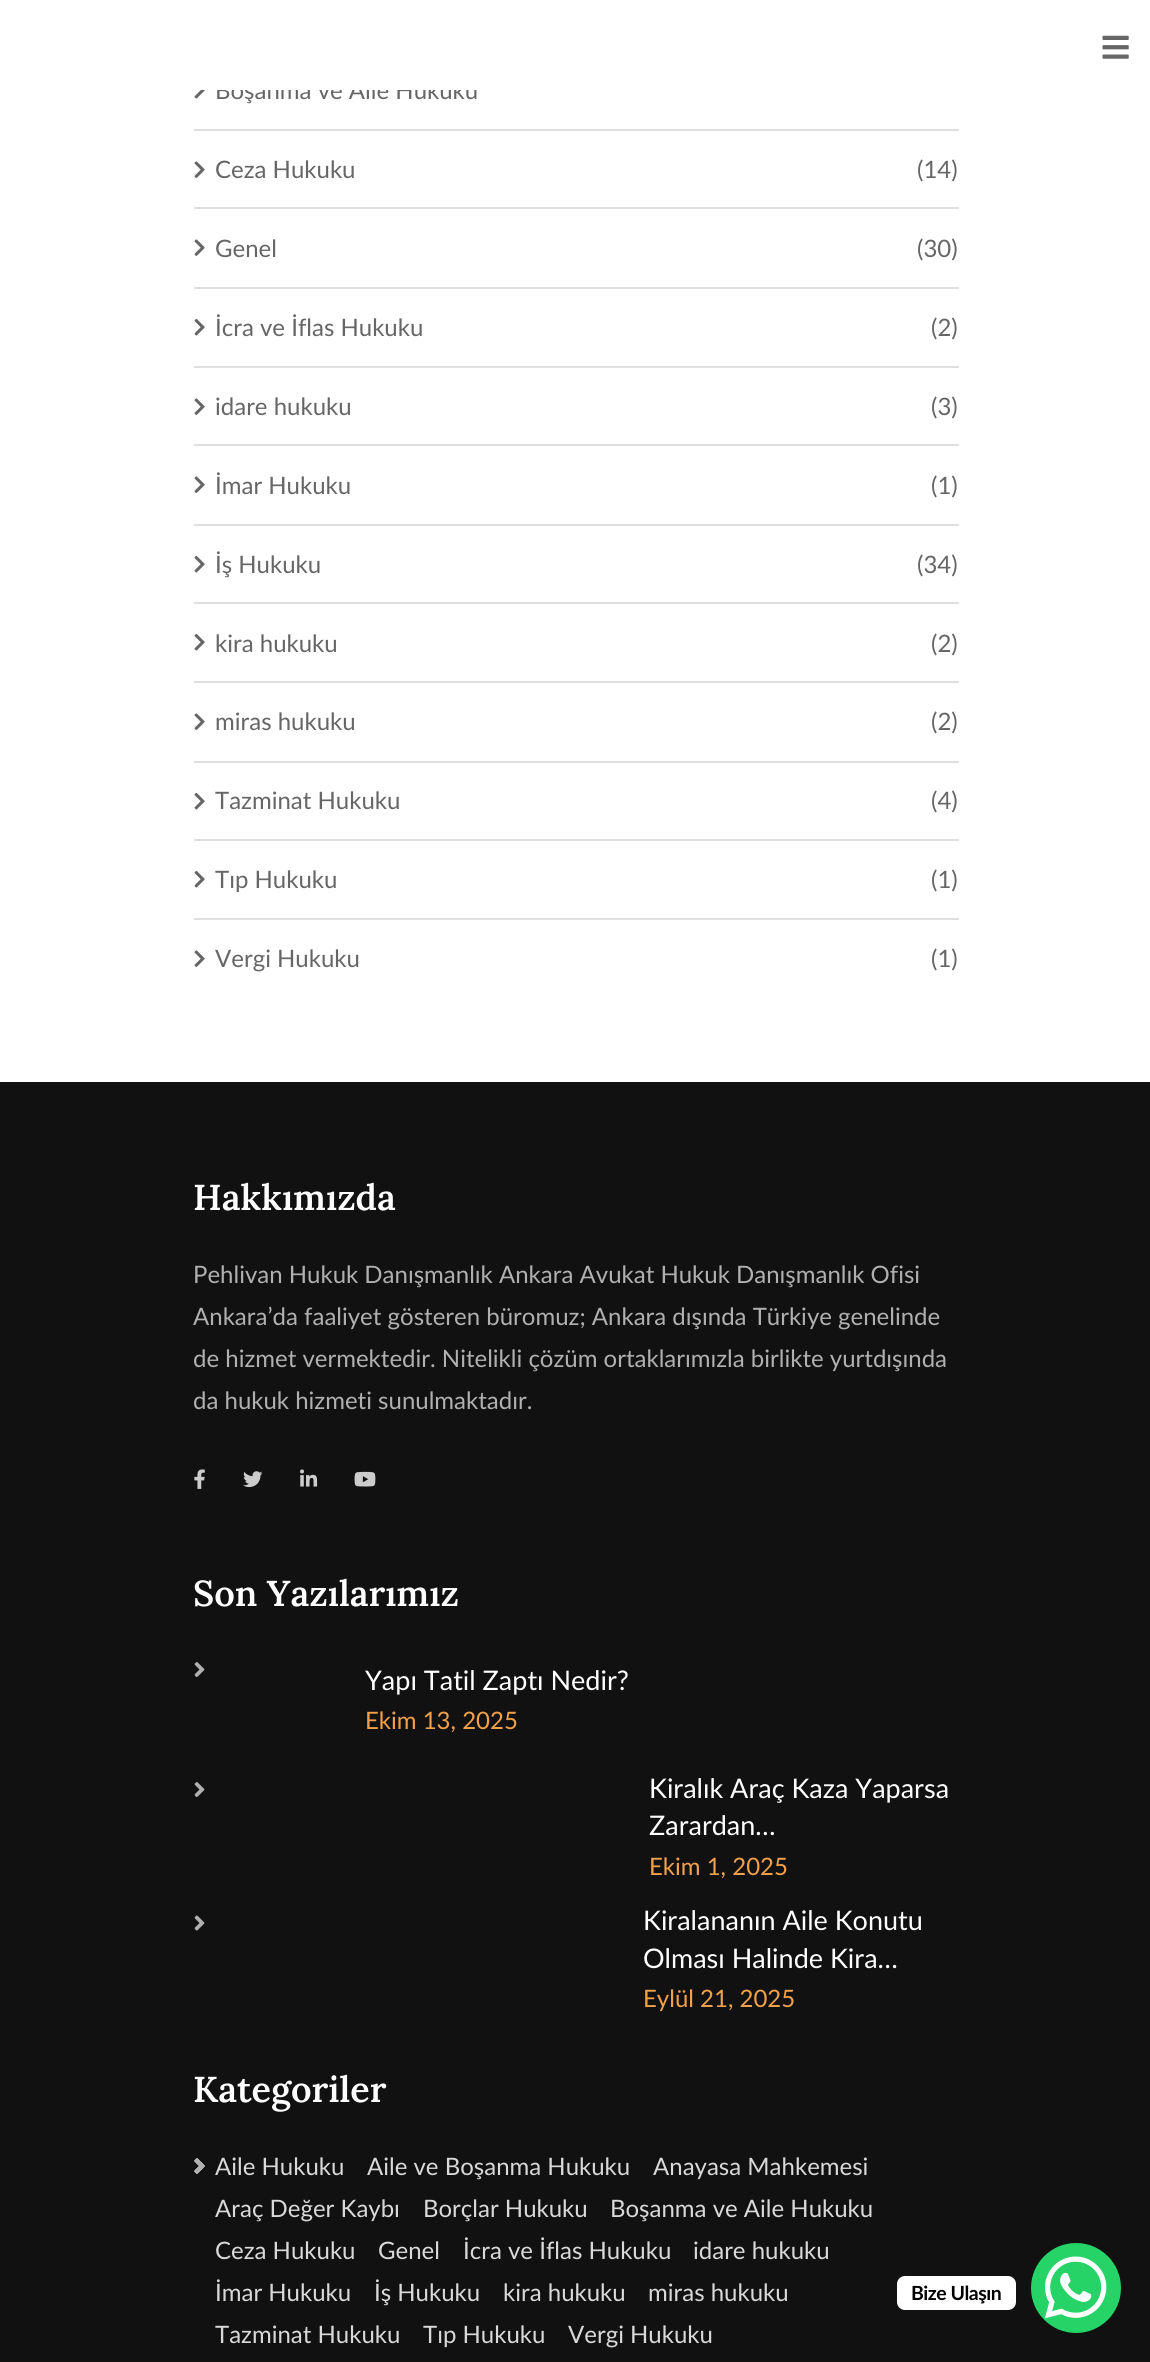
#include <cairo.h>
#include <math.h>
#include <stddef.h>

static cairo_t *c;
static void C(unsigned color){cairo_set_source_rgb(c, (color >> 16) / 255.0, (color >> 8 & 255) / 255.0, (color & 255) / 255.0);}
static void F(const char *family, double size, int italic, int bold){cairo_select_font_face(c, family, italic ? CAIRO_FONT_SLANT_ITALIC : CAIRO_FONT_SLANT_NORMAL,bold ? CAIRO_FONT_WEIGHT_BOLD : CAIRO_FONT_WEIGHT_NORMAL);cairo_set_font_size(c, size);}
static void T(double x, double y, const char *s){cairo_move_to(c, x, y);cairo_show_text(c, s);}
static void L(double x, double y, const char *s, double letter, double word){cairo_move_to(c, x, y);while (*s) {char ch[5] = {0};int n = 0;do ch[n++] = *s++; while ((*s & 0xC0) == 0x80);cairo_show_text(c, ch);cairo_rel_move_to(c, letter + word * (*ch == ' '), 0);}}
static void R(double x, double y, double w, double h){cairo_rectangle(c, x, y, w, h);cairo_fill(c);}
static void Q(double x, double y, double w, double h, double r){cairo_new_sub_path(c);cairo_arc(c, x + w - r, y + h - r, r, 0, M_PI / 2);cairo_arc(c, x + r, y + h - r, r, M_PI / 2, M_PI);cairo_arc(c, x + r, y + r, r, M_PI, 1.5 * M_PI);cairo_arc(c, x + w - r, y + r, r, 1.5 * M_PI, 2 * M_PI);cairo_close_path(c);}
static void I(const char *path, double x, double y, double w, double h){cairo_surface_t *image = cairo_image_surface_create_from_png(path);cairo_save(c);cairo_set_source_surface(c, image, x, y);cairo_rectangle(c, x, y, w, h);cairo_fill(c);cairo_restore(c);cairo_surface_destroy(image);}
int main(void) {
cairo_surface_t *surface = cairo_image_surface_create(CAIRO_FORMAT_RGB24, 1150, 2362);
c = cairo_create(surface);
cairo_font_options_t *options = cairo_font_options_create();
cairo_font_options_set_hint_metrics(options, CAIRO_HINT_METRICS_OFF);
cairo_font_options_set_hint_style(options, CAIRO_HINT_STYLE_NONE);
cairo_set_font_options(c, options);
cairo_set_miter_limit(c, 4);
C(0xffffff);
cairo_paint(c);
F("Lato",24,0,0);
C(0x666666);
T(215,99,"Boşanma ve Aile Hukuku");
C(0xffffff);
R(217,81,260,9);
I("1.png",1102,35,27,24);
C(0xdfdfdf);
R(194,129,765,2);
I("2.png",194,90,11,9);
R(194,207,765,2);
I("3.png",194,161,11,17);
C(0x666666);
T(215,178,"Ceza Hukuku");
T(917,178,"(14)");
C(0xdfdfdf);
R(194,287,765,2);
I("3.png",194,239,11,17);
C(0x666666);
T(215,257,"Genel");
T(917,257,"(30)");
C(0xdfdfdf);
R(194,366,765,2);
I("4.png",194,318,11,18);
C(0x666666);
T(215,336,"İcra ve İflas Hukuku");
T(931,336,"(2)");
C(0xdfdfdf);
R(194,444,765,2);
I("3.png",194,398,11,17);
C(0x666666);
T(215,415,"idare hukuku");
T(931,415,"(3)");
C(0xdfdfdf);
R(194,524,765,2);
I("3.png",194,476,11,17);
C(0x666666);
T(215,494,"İmar Hukuku");
T(931,494,"(1)");
C(0xdfdfdf);
R(194,602,765,2);
I("4.png",194,555,11,18);
C(0x666666);
T(215,573,"İş Hukuku");
T(917,573,"(34)");
C(0xdfdfdf);
R(194,681,765,2);
I("4.png",194,633,11,18);
C(0x666666);
T(215,652,"kira hukuku");
T(931,652,"(2)");
C(0xdfdfdf);
R(194,761,765,2);
I("3.png",194,713,11,17);
C(0x666666);
T(215,730,"miras hukuku");
T(931,730,"(2)");
C(0xdfdfdf);
R(194,839,765,2);
I("4.png",194,792,11,18);
C(0x666666);
T(215,809,"Tazminat Hukuku");
T(931,809,"(4)");
C(0xdfdfdf);
R(194,918,765,2);
I("4.png",194,870,11,18);
C(0x666666);
T(215,888,"Tıp Hukuku");
T(931,888,"(1)");
I("3.png",194,950,11,17);
T(215,967,"Vergi Hukuku");
T(931,967,"(1)");
C(0x111111);
R(0,1082,1150,1280);
F("Lora SemiBold",36,0,0);
C(0xffffff);
T(193,1210,"Hakkımızda");
F("Lato",24,0,0);
C(0xb0b0b0);
T(193,1283,"Pehlivan Hukuk Danışmanlık Ankara Avukat Hukuk Danışmanlık Ofisi");
T(193,1325,"Ankara’da faaliyet gösteren büromuz; Ankara dışında Türkiye genelinde");
T(193,1367,"de hizmet vermektedir. Nitelikli çözüm ortaklarımızla birlikte yurtdışında");
T(193,1409,"da hukuk hizmeti sunulmaktadır.");
I("5.png",194,1469,11,20);
I("6.png",243,1471,20,17);
I("7.png",300,1469,18,18);
I("8.png",354,1471,22,16);
F("Lora SemiBold",36,0,0);
C(0xffffff);
T(193,1606,"Son Yazılarımız");
I("9.png",194,1662,11,15);
F("Lato",27,0,0);
T(365,1690,"Yapı Tatil Zaptı Nedir?");
F("Lato",24,0,0);
C(0xf2a14b);
T(365,1729,"Ekim 13, 2025");
I("9.png",194,1782,11,15);
F("Lato",27,0,0);
C(0xffffff);
T(649,1798,"Kiralık Araç Kaza Yaparsa");
T(649,1835,"Zarardan…");
F("Lato",24,0,0);
C(0xf2a14b);
T(649,1875,"Ekim 1, 2025");
I("10.png",194,1915,11,16);
F("Lato",27,0,0);
C(0xffffff);
T(643,1930,"Kiralananın Aile Konutu");
T(643,1968,"Olması Halinde Kira…");
F("Lato",24,0,0);
C(0xf2a14b);
T(643,2007,"Eylül 21, 2025");
F("Lora SemiBold",36,0,0);
C(0xffffff);
T(193,2102,"Kategoriler");
I("10.png",194,2158,11,16);
F("Lato",24,0,0);
C(0xd9d9d9);
T(215,2175,"Aile Hukuku");
I("11.png",194,2158,11,16);
T(367,2175,"Aile ve Boşanma Hukuku");
I("12.png",194,2158,11,16);
T(653,2175,"Anayasa Mahkemesi");
I("13.png",194,2158,11,16);
T(215,2217,"Araç Değer Kaybı");
I("14.png",194,2158,11,16);
T(423,2217,"Borçlar Hukuku");
I("15.png",194,2158,11,16);
T(610,2217,"Boşanma ve Aile Hukuku");
I("16.png",194,2158,11,16);
T(215,2259,"Ceza Hukuku");
I("17.png",194,2158,11,16);
T(378,2259,"Genel");
I("18.png",194,2158,11,16);
T(463,2259,"İcra ve İflas Hukuku");
I("19.png",194,2161,11,10);
T(693,2259,"idare hukuku");
I("20.png",194,2161,11,10);
T(215,2301,"İmar Hukuku");
I("21.png",194,2161,5,10);
T(374,2301,"İş Hukuku");
I("22.png",194,2161,4,10);
T(503,2301,"kira hukuku");
I("23.png",194,2161,1,10);
T(648,2301,"miras hukuku");
T(215,2343,"Tazminat Hukuku");
T(423,2343,"Tıp Hukuku");
T(568,2343,"Vergi Hukuku");
C(0xffffff);
Q(897,2276,119,34,8);
cairo_fill(c);
F("Lato",19.5,0,1);
C(0x000000);
L(911,2300,"Bize Ulaşın",-.5,0);
C(0x25d366);
cairo_new_path(c);
cairo_arc(c,1076,2288,45,0,2 * M_PI);
cairo_fill(c);
I("24.png",1044,2256,63,63);
cairo_surface_write_to_png(surface, "o.png");
cairo_font_options_destroy(options);
cairo_destroy(c);
cairo_surface_destroy(surface);
return 0;
}
